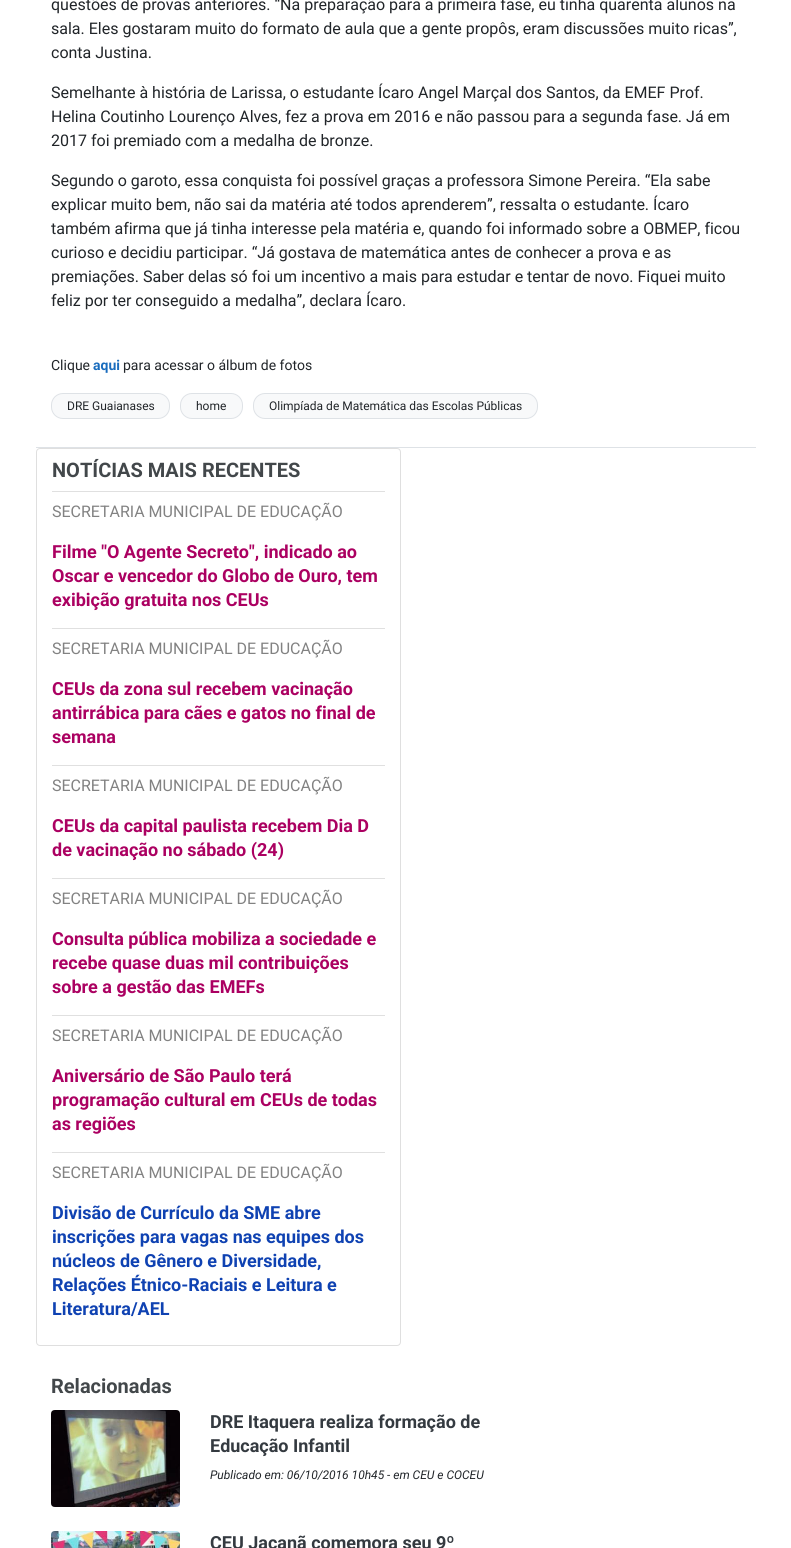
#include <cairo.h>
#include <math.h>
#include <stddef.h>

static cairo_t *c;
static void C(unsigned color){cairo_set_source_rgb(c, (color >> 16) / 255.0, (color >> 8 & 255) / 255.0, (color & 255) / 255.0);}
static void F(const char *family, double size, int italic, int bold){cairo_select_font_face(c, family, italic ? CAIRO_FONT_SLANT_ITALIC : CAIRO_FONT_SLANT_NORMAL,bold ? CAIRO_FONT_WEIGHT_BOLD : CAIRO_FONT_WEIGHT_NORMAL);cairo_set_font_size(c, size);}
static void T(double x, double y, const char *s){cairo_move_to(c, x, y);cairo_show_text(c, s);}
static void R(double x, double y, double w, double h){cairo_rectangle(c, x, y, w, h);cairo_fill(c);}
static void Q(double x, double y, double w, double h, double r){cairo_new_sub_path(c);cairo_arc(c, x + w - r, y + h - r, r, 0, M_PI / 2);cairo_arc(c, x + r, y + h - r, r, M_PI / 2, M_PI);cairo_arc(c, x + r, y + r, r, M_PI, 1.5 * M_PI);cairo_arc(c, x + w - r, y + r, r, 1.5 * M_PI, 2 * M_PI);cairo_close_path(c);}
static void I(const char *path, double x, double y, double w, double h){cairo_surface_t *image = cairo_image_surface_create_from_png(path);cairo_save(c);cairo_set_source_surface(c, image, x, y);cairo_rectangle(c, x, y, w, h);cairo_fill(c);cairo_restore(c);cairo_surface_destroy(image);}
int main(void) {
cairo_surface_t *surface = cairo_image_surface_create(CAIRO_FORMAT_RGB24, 791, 1548);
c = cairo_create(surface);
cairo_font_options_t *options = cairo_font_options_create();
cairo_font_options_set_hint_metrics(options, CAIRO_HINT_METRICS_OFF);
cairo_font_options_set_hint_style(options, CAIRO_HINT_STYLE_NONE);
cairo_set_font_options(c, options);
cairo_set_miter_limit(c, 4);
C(0xffffff);
cairo_paint(c);
C(0xdee2e6);
R(36,447,720,1);
F("Roboto",16,0,0);
C(0x212529);
T(51,10,"questões de provas anteriores. “Na preparação para a primeira fase, eu tinha quarenta alunos na");
T(51,34,"sala. Eles gostaram muito do formato de aula que a gente propôs, eram discussões muito ricas”,");
T(51,58,"conta Justina.");
T(51,98,"Semelhante à história de Larissa, o estudante Ícaro Angel Marçal dos Santos, da EMEF Prof.");
T(51,122,"Helina Coutinho Lourenço Alves, fez a prova em 2016 e não passou para a segunda fase. Já em");
T(51,146,"2017 foi premiado com a medalha de bronze.");
T(51,186,"Segundo o garoto, essa conquista foi possível graças a professora Simone Pereira. “Ela sabe");
T(51,210,"explicar muito bem, não sai da matéria até todos aprenderem”, ressalta o estudante. Ícaro");
T(51,234,"também afirma que já tinha interesse pela matéria e, quando foi informado sobre a OBMEP, ficou");
T(51,258,"curioso e decidiu participar. “Já gostava de matemática antes de conhecer a prova e as");
T(51,282,"premiações. Saber delas só foi um incentivo a mais para estudar e tentar de novo. Fiquei muito");
T(51,306,"feliz por ter conseguido a medalha”, declara Ícaro.");
F("Roboto",14,0,0);
T(51,370,"Clique");
F("Roboto",14,0,1);
C(0x196cbd);
T(93,370,"aqui");
F("Roboto",14,0,0);
C(0x212529);
T(123,370,"para acessar o álbum de fotos");
C(0xf8f9fa);
Q(51.5,393.5,118,25,11.5);
cairo_fill_preserve(c);
C(0xdee2e6);
cairo_set_line_width(c,1);
cairo_stroke(c);
F("Roboto",12,0,0);
C(0x212529);
T(67,410,"DRE Guaianases");
C(0xf8f9fa);
Q(180.5,393.5,62,25,11.5);
cairo_fill_preserve(c);
C(0xdee2e6);
cairo_stroke(c);
C(0x212529);
T(196,410,"home");
C(0xf8f9fa);
Q(253.5,393.5,284,25,11.5);
cairo_fill_preserve(c);
C(0xdee2e6);
cairo_stroke(c);
C(0x212529);
T(269,410,"Olimpíada de Matemática das Escolas Públicas");
Q(36.5,448.5,364,897,3.5);
C(0xdfdfdf);
cairo_stroke(c);
C(0xe0e0e0);
R(52,491,333,1);
F("Roboto",20,0,1);
C(0x42474a);
T(52,477,"NOTÍCIAS MAIS RECENTES");
F("Roboto",16,0,0);
C(0x828282);
T(52,517,"SECRETARIA MUNICIPAL DE EDUCAÇÃO");
C(0xe0e0e0);
R(52,628,333,1);
F("Roboto",18,0,1);
C(0xab0061);
T(52,558,"Filme \"O Agente Secreto\", indicado ao");
T(52,582,"Oscar e vencedor do Globo de Ouro, tem");
T(52,606,"exibição gratuita nos CEUs");
F("Roboto",16,0,0);
C(0x828282);
T(52,654,"SECRETARIA MUNICIPAL DE EDUCAÇÃO");
C(0xe0e0e0);
R(52,765,333,1);
F("Roboto",18,0,1);
C(0xab0061);
T(52,695,"CEUs da zona sul recebem vacinação");
T(52,719,"antirrábica para cães e gatos no final de");
T(52,743,"semana");
F("Roboto",16,0,0);
C(0x828282);
T(52,791,"SECRETARIA MUNICIPAL DE EDUCAÇÃO");
C(0xe0e0e0);
R(52,878,333,1);
F("Roboto",18,0,1);
C(0xab0061);
T(52,832,"CEUs da capital paulista recebem Dia D");
T(52,856,"de vacinação no sábado (24)");
F("Roboto",16,0,0);
C(0x828282);
T(52,904,"SECRETARIA MUNICIPAL DE EDUCAÇÃO");
C(0xe0e0e0);
R(52,1015,333,1);
F("Roboto",18,0,1);
C(0xab0061);
T(52,945,"Consulta pública mobiliza a sociedade e");
T(52,969,"recebe quase duas mil contribuições");
T(52,993,"sobre a gestão das EMEFs");
F("Roboto",16,0,0);
C(0x828282);
T(52,1041,"SECRETARIA MUNICIPAL DE EDUCAÇÃO");
C(0xe0e0e0);
R(52,1152,333,1);
F("Roboto",18,0,1);
C(0xab0061);
T(52,1082,"Aniversário de São Paulo terá");
T(52,1106,"programação cultural em CEUs de todas");
T(52,1130,"as regiões");
F("Roboto",16,0,0);
C(0x828282);
T(52,1178,"SECRETARIA MUNICIPAL DE EDUCAÇÃO");
F("Roboto",18,0,1);
C(0x0f42b2);
T(52,1219,"Divisão de Currículo da SME abre");
T(52,1243,"inscrições para vagas nas equipes dos");
T(52,1267,"núcleos de Gênero e Diversidade,");
T(52,1291,"Relações Étnico-Raciais e Leitura e");
T(52,1315,"Literatura/AEL");
F("Roboto",20,0,1);
C(0x42474a);
T(51,1393,"Relacionadas");
I("1.png",51,1410,129,97);
F("Roboto",18,0,1);
C(0x343a40);
T(210,1428,"DRE Itaquera realiza formação de");
T(210,1452,"Educação Infantil");
F("Roboto",12,1,0);
C(0x212529);
T(210,1479,"Publicado em: 06/10/2016 10h45 - em CEU e COCEU");
I("2.png",51,1531,129,17);
F("Roboto",18,0,1);
C(0x343a40);
T(210,1549,"CEU Jaçanã comemora seu 9º");
cairo_surface_write_to_png(surface, "o.png");
cairo_font_options_destroy(options);
cairo_destroy(c);
cairo_surface_destroy(surface);
return 0;
}
